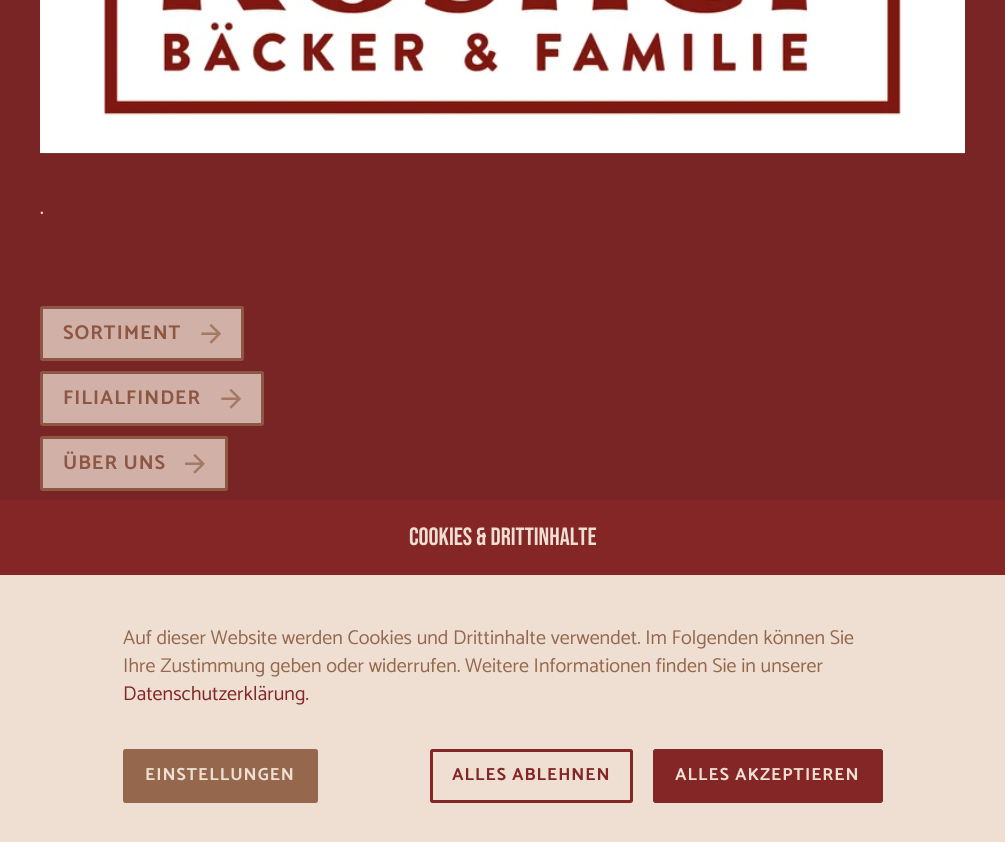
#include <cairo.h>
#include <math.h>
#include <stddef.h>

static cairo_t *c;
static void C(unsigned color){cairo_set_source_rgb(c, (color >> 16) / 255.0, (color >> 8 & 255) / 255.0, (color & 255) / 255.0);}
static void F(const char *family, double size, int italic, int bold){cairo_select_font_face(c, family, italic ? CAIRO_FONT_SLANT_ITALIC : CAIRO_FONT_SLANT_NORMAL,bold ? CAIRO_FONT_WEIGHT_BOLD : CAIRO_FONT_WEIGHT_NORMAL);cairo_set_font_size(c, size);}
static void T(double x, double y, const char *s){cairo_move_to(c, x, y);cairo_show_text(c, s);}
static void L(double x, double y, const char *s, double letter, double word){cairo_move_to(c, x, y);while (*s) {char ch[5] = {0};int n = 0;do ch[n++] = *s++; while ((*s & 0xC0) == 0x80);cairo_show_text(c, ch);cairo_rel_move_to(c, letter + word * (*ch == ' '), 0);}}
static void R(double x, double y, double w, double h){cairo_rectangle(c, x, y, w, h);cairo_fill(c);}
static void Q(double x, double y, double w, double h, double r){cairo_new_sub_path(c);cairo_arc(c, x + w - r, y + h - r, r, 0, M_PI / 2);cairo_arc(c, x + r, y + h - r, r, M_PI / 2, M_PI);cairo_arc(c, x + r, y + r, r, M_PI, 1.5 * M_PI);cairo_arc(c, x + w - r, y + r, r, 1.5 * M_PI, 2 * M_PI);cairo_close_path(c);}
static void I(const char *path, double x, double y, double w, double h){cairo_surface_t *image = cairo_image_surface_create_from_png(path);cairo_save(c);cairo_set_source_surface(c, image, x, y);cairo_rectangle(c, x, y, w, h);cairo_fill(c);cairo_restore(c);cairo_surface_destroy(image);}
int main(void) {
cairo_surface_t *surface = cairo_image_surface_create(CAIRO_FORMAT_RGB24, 1005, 842);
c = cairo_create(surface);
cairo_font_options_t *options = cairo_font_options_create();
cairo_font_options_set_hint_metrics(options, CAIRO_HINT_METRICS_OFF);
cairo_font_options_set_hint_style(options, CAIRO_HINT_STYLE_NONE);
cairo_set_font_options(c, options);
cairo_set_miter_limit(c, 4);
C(0x7a2525);
cairo_paint(c);
I("1.png",40,0,925,154);
F("Catamaran Thin",22,0,0);
C(0xeedfd2);
T(40,214,".");
C(0xd1b1a7);
Q(41.5,307.5,201,52,1);
cairo_fill_preserve(c);
C(0x8e5743);
cairo_set_line_width(c,3);
cairo_stroke(c);
F("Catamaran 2 Thin",20,0,0);
L(63,339,"SORTIMENT",1,0);
I("2.png",201,324,20,20);
C(0xd1b1a7);
Q(41.5,372.5,221,52,1);
cairo_fill_preserve(c);
C(0x8e5743);
cairo_stroke(c);
L(63,404,"FILIALFINDER",1,0);
I("2.png",221,389,20,20);
C(0xd1b1a7);
Q(41.5,437.5,185,52,1);
cairo_fill_preserve(c);
C(0x8e5743);
cairo_stroke(c);
L(63,469,"ÜBER UNS",1,0);
I("3.png",185,454,20,20);
C(0xeedfd2);
R(0,575,1005,267);
C(0x842626);
R(0,500,1005,75);
F("Bebas Neue",25,0,0);
C(0xeedfd2);
T(409,545,"COOKIES & DRITTINHALTE");
F("Catamaran Thin",20,0,0);
C(0x95684d);
T(123,644,"Auf dieser Website werden Cookies und Drittinhalte verwendet. Im Folgenden können Sie");
T(123,672,"Ihre Zustimmung geben oder widerrufen. Weitere Informationen finden Sie in unserer");
C(0x842626);
T(123,700,"Datenschutzerklärung.");
C(0x95684d);
Q(124.5,750.5,192,51,1);
cairo_fill_preserve(c);
cairo_stroke(c);
F("Catamaran 2 Thin",17.5,0,0);
C(0xeedfd2);
L(145,780,"EINSTELLUNGEN",1,0);
Q(431.5,750.5,200,51,1);
C(0x842626);
cairo_stroke(c);
L(452,780,"ALLES ABLEHNEN",1,0);
Q(654.5,750.5,227,51,1);
cairo_fill_preserve(c);
cairo_stroke(c);
C(0xeedfd2);
L(675,780,"ALLES AKZEPTIEREN",1,0);
cairo_surface_write_to_png(surface, "o.png");
cairo_font_options_destroy(options);
cairo_destroy(c);
cairo_surface_destroy(surface);
return 0;
}
